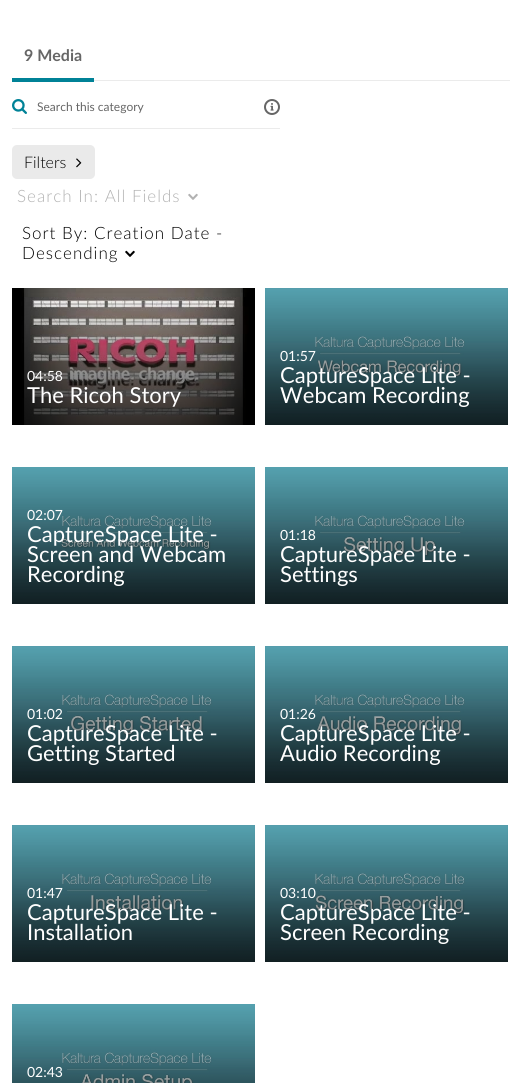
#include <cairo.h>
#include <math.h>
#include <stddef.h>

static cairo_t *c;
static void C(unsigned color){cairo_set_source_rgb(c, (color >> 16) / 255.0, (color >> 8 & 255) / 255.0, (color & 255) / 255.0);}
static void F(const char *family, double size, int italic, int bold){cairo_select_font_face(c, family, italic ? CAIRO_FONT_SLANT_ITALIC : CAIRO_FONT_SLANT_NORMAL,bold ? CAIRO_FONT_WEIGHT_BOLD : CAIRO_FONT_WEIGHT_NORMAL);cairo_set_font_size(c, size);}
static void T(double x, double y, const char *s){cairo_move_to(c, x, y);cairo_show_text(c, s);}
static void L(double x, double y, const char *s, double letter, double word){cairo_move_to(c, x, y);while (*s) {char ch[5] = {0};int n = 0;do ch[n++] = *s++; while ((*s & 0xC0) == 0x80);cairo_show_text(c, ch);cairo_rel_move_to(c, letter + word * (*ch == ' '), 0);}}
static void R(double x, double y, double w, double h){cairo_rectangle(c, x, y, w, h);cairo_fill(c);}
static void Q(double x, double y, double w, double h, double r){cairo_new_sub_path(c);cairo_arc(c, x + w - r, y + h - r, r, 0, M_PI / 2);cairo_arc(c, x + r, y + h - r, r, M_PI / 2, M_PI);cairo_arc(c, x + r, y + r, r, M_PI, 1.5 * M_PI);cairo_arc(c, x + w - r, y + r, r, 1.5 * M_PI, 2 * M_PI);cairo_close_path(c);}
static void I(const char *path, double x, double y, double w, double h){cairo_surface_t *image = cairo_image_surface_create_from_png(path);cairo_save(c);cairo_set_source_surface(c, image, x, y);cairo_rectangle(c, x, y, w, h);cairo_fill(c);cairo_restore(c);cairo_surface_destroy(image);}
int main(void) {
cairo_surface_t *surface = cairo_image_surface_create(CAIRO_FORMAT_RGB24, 522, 1083);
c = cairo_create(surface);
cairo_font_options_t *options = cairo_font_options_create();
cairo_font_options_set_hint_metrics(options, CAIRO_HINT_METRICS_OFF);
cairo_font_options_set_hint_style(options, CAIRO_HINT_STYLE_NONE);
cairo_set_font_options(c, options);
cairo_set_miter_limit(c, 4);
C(0xffffff);
cairo_paint(c);
C(0xebebeb);
R(94,80,416,1);
C(0x008297);
R(12,78,82,4);
F("Lato",16,0,1);
C(0x666666);
T(24,61,"9 Media");
C(0xebebeb);
R(12,128,268,1);
I("1.png",12,99,15,15);
F("Lato",12,0,0);
C(0x666666);
T(37,111,"Search this category");
I("2.png",264,99,16,16);
C(0xeaeaea);
Q(12,145,83,34,5);
cairo_fill(c);
F("Lato Light",16,0,0);
C(0x000000);
T(24,168,"Filters");
I("3.png",76,158,6,10);
F("Lato Light",17,0,0);
C(0xb2b2b2);
L(17,202,"Search In: All Fields",1,0);
I("4.png",188,193,10,7);
C(0x000000);
L(22,239,"Sort By: Creation Date -",1,0);
L(22,259,"Descending",1,0);
I("5.png",125,250,10,7);
I("6.png",12,288,243,137);
F("Lato",14,0,0);
C(0xffffff);
T(27,381,"04:58");
F("Lato",22,0,0);
T(27,403,"The Ricoh Story");
I("7.png",265,288,243,137);
F("Lato",14,0,0);
T(280,361,"01:57");
F("Lato",22,0,0);
T(280,383,"CaptureSpace Lite -");
T(280,403,"Webcam Recording");
I("8.png",12,467,243,137);
F("Lato",14,0,0);
T(27,520,"02:07");
F("Lato",22,0,0);
T(27,542,"CaptureSpace Lite -");
T(27,562,"Screen and Webcam");
T(27,582,"Recording");
I("9.png",265,467,243,137);
F("Lato",14,0,0);
T(280,540,"01:18");
F("Lato",22,0,0);
T(280,562,"CaptureSpace Lite -");
T(280,582,"Settings");
I("10.png",12,646,243,137);
F("Lato",14,0,0);
T(27,719,"01:02");
F("Lato",22,0,0);
T(27,741,"CaptureSpace Lite -");
T(27,761,"Getting Started");
I("11.png",265,646,243,137);
F("Lato",14,0,0);
T(280,719,"01:26");
F("Lato",22,0,0);
T(280,741,"CaptureSpace Lite -");
T(280,761,"Audio Recording");
I("12.png",12,825,243,137);
F("Lato",14,0,0);
T(27,898,"01:47");
F("Lato",22,0,0);
T(27,920,"CaptureSpace Lite -");
T(27,940,"Installation");
I("13.png",265,825,243,137);
F("Lato",14,0,0);
T(280,898,"03:10");
F("Lato",22,0,0);
T(280,920,"CaptureSpace Lite -");
T(280,940,"Screen Recording");
I("14.png",12,1004,243,79);
F("Lato",14,0,0);
T(27,1077,"02:43");
cairo_surface_write_to_png(surface, "o.png");
cairo_font_options_destroy(options);
cairo_destroy(c);
cairo_surface_destroy(surface);
return 0;
}
